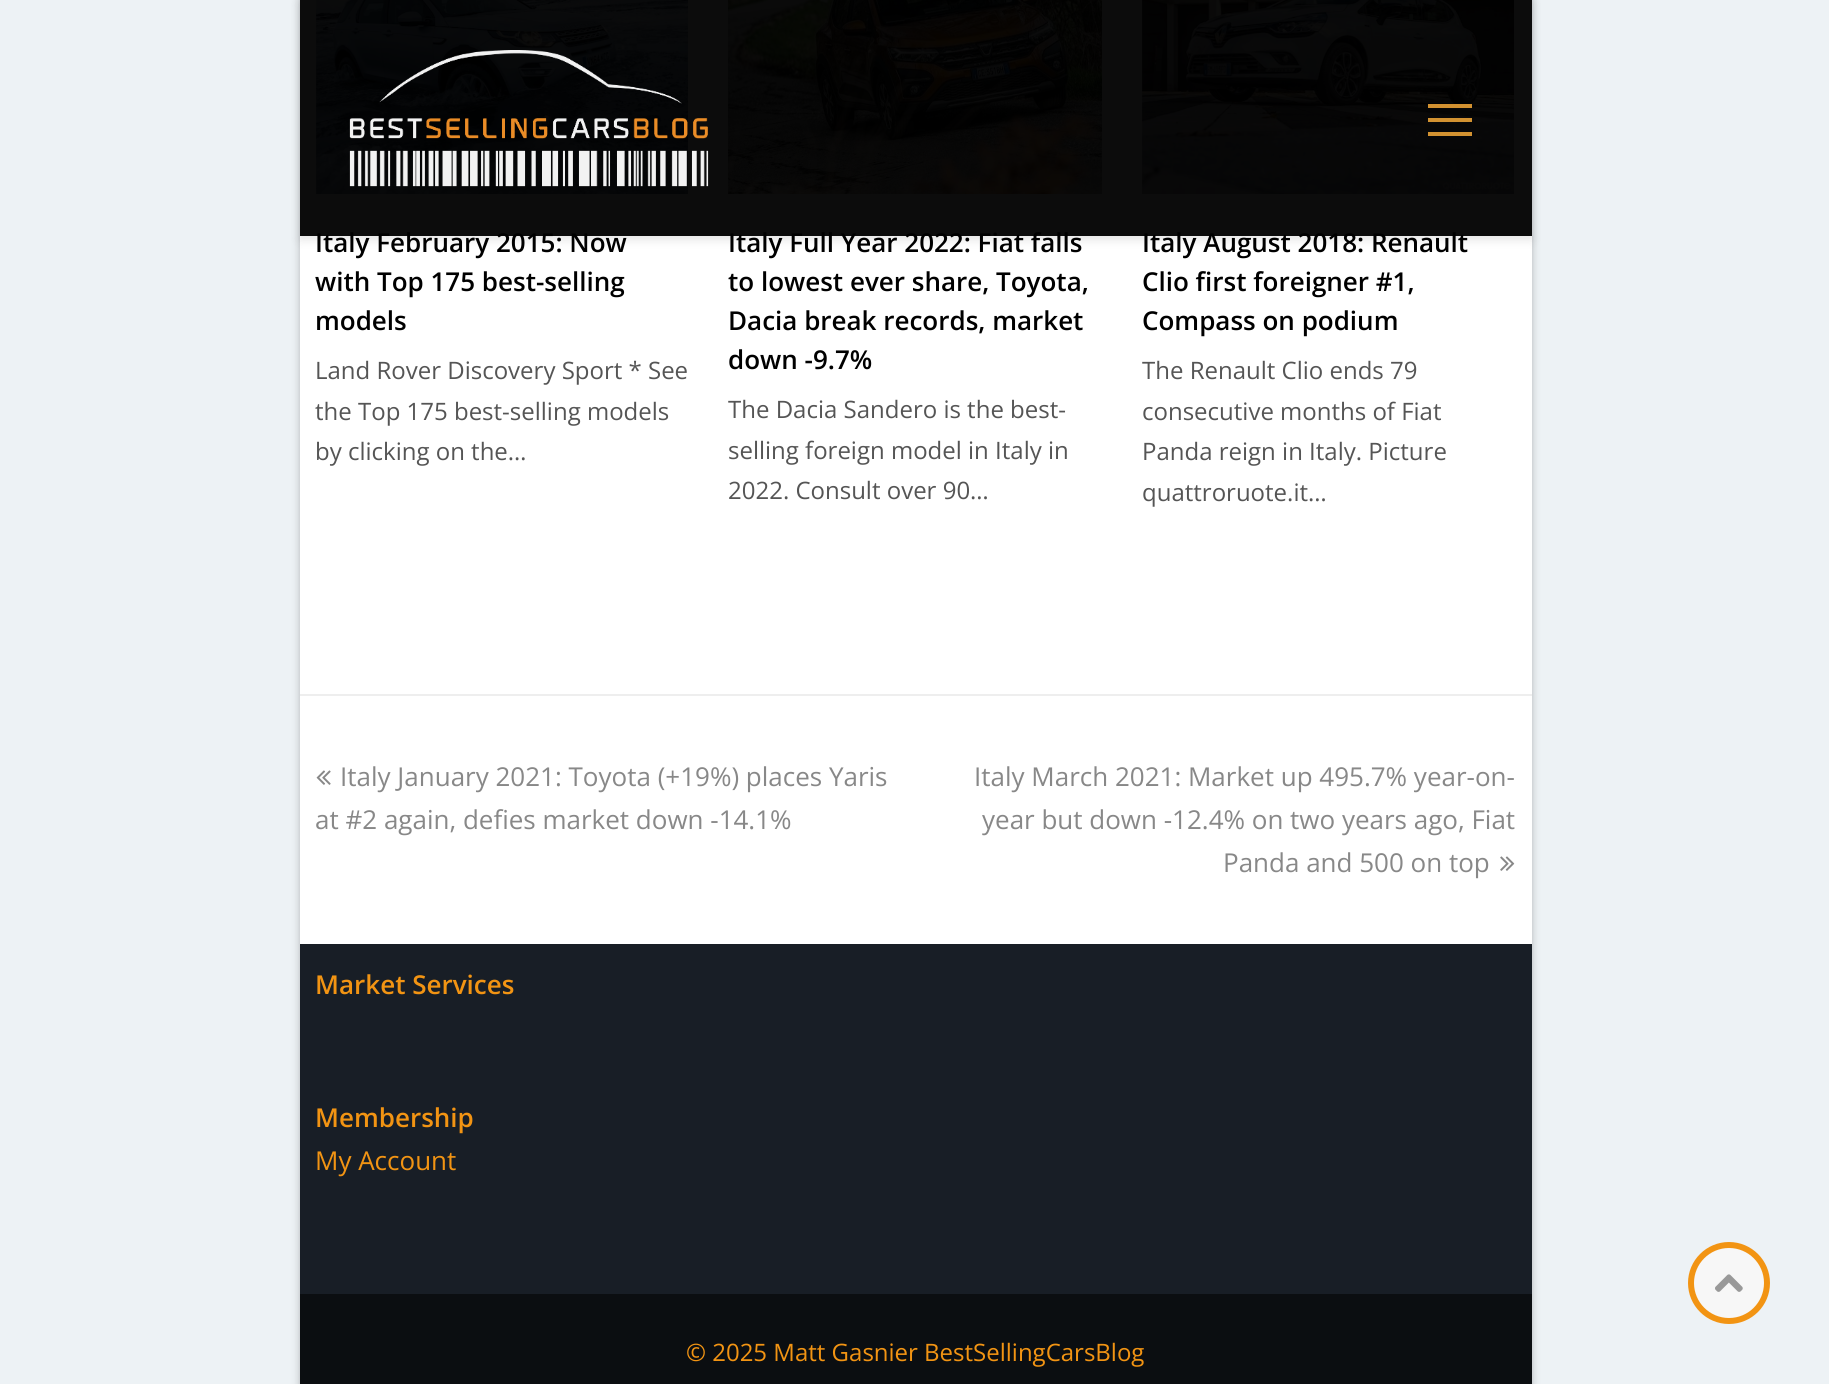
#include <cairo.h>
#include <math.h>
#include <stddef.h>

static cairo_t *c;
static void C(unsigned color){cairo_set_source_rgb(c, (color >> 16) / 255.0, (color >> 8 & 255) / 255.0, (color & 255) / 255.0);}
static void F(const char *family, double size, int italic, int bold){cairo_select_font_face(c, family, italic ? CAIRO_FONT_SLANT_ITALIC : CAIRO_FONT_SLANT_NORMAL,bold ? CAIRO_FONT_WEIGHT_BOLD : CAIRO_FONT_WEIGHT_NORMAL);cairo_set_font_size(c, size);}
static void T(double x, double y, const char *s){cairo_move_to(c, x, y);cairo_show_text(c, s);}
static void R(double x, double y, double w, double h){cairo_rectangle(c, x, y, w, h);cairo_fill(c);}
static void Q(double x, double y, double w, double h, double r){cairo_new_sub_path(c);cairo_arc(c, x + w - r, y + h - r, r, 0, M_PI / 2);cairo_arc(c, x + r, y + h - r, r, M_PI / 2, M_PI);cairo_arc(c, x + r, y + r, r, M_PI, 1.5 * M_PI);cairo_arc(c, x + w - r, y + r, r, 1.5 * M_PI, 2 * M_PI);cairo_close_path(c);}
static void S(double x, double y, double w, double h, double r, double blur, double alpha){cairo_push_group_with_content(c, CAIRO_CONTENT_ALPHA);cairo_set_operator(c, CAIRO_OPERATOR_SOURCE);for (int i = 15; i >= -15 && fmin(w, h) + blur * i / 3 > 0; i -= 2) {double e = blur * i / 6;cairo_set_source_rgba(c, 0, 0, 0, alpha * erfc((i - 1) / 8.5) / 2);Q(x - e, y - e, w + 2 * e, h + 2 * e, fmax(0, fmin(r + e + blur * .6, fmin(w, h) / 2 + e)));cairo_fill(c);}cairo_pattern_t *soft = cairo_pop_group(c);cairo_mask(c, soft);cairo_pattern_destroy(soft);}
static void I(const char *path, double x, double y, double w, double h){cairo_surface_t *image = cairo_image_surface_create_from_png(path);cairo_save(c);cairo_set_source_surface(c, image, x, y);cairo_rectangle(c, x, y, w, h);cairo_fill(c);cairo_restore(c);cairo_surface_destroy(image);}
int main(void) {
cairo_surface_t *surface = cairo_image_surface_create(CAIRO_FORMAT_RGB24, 1829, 1384);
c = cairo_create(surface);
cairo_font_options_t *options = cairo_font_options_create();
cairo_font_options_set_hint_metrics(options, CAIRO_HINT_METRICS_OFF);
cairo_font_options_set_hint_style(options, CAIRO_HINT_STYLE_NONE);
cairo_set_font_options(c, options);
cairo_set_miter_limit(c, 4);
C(0xedf2f5);
cairo_paint(c);
C(0x000000);
S(300,-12,1232,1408,0,4,.25);
C(0xffffff);
R(300,0,1232,944);
I("2.png",316,0,372,194);
I("3.png",728,0,374,194);
I("4.png",1142,0,372,194);
cairo_save(c);
cairo_set_fill_rule(c,CAIRO_FILL_RULE_EVEN_ODD);
cairo_new_path(c);
cairo_move_to(c,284,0);
cairo_line_to(c,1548,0);
cairo_line_to(c,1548,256);
cairo_line_to(c,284,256);
cairo_close_path(c);
cairo_move_to(c,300,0);
cairo_line_to(c,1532,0);
cairo_line_to(c,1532,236);
cairo_line_to(c,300,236);
cairo_close_path(c);
cairo_clip(c);
C(0x000000);
S(300,4,1232,236,0,5,.1);
cairo_restore(c);
F("Open Sans SemiBold",26,0,0);
C(0x000000);
T(315,252,"Italy February 2015: Now");
T(728,252,"Italy Full Year 2022: Fiat falls");
T(1142,252,"Italy August 2018: Renault");
cairo_set_source_rgba(c,0,0,0,0.95);
R(300,0,1232,236);
I("1.png",349,50,360,137);
C(0xd29231);
R(1428,118,44,4);
cairo_set_source_rgba(c,0.867,0.6,0.2,0.95);
R(1428,104,44,4);
C(0xd29231);
R(1428,132,44,4);
C(0x000000);
T(315,291,"with Top 175 best-selling");
T(315,330,"models");
F("Open Sans",24,0,0);
C(0x555555);
T(315,379,"Land Rover Discovery Sport * See");
T(315,420,"the Top 175 best-selling models");
T(315,460,"by clicking on the…");
F("Open Sans SemiBold",26,0,0);
C(0x000000);
T(728,291,"to lowest ever share, Toyota,");
T(728,330,"Dacia break records, market");
T(728,369,"down -9.7%");
F("Open Sans",24,0,0);
C(0x555555);
T(728,418,"The Dacia Sandero is the best-");
T(728,459,"selling foreign model in Italy in");
T(728,499,"2022. Consult over 90…");
F("Open Sans SemiBold",26,0,0);
C(0x000000);
T(1142,291,"Clio first foreigner #1,");
T(1142,330,"Compass on podium");
F("Open Sans",24,0,0);
C(0x555555);
T(1142,379,"The Renault Clio ends 79");
T(1142,420,"consecutive months of Fiat");
T(1142,460,"Panda reign in Italy. Picture");
T(1142,501,"quattroruote.it…");
C(0xeeeeee);
R(300,694,1232,2);
I("5.png",316,770,15,15);
F("Open Sans",26,0,0);
C(0x888888);
T(340,786,"Italy January 2021: Toyota (+19%) places Yaris");
T(315,829,"at #2 again, defies market down -14.1%");
T(974,786,"Italy March 2021: Market up 495.7% year-on-");
T(982,829,"year but down -12.4% on two years ago, Fiat");
T(1223,872,"Panda and 500 on top");
I("6.png",1500,856,15,15);
C(0x181e26);
R(300,944,1232,350);
F("Open Sans SemiBold",26,0,0);
C(0xf29413);
T(315,994,"Market Services");
T(315,1127,"Membership");
F("Open Sans",26,0,0);
T(315,1170,"My Account");
C(0x0b0e11);
R(300,1294,1232,90);
F("Open Sans",24,0,0);
C(0xf29413);
T(686,1361,"© 2025 Matt Gasnier BestSellingCarsBlog");
C(0xf7f7f7);
cairo_new_path(c);
cairo_arc(c,1729,1283,38,0,2 * M_PI);
cairo_fill_preserve(c);
C(0xf29413);
cairo_set_line_width(c,6);
cairo_stroke(c);
I("7.png",1715,1274,28,18);
cairo_surface_write_to_png(surface, "o.png");
cairo_font_options_destroy(options);
cairo_destroy(c);
cairo_surface_destroy(surface);
return 0;
}
